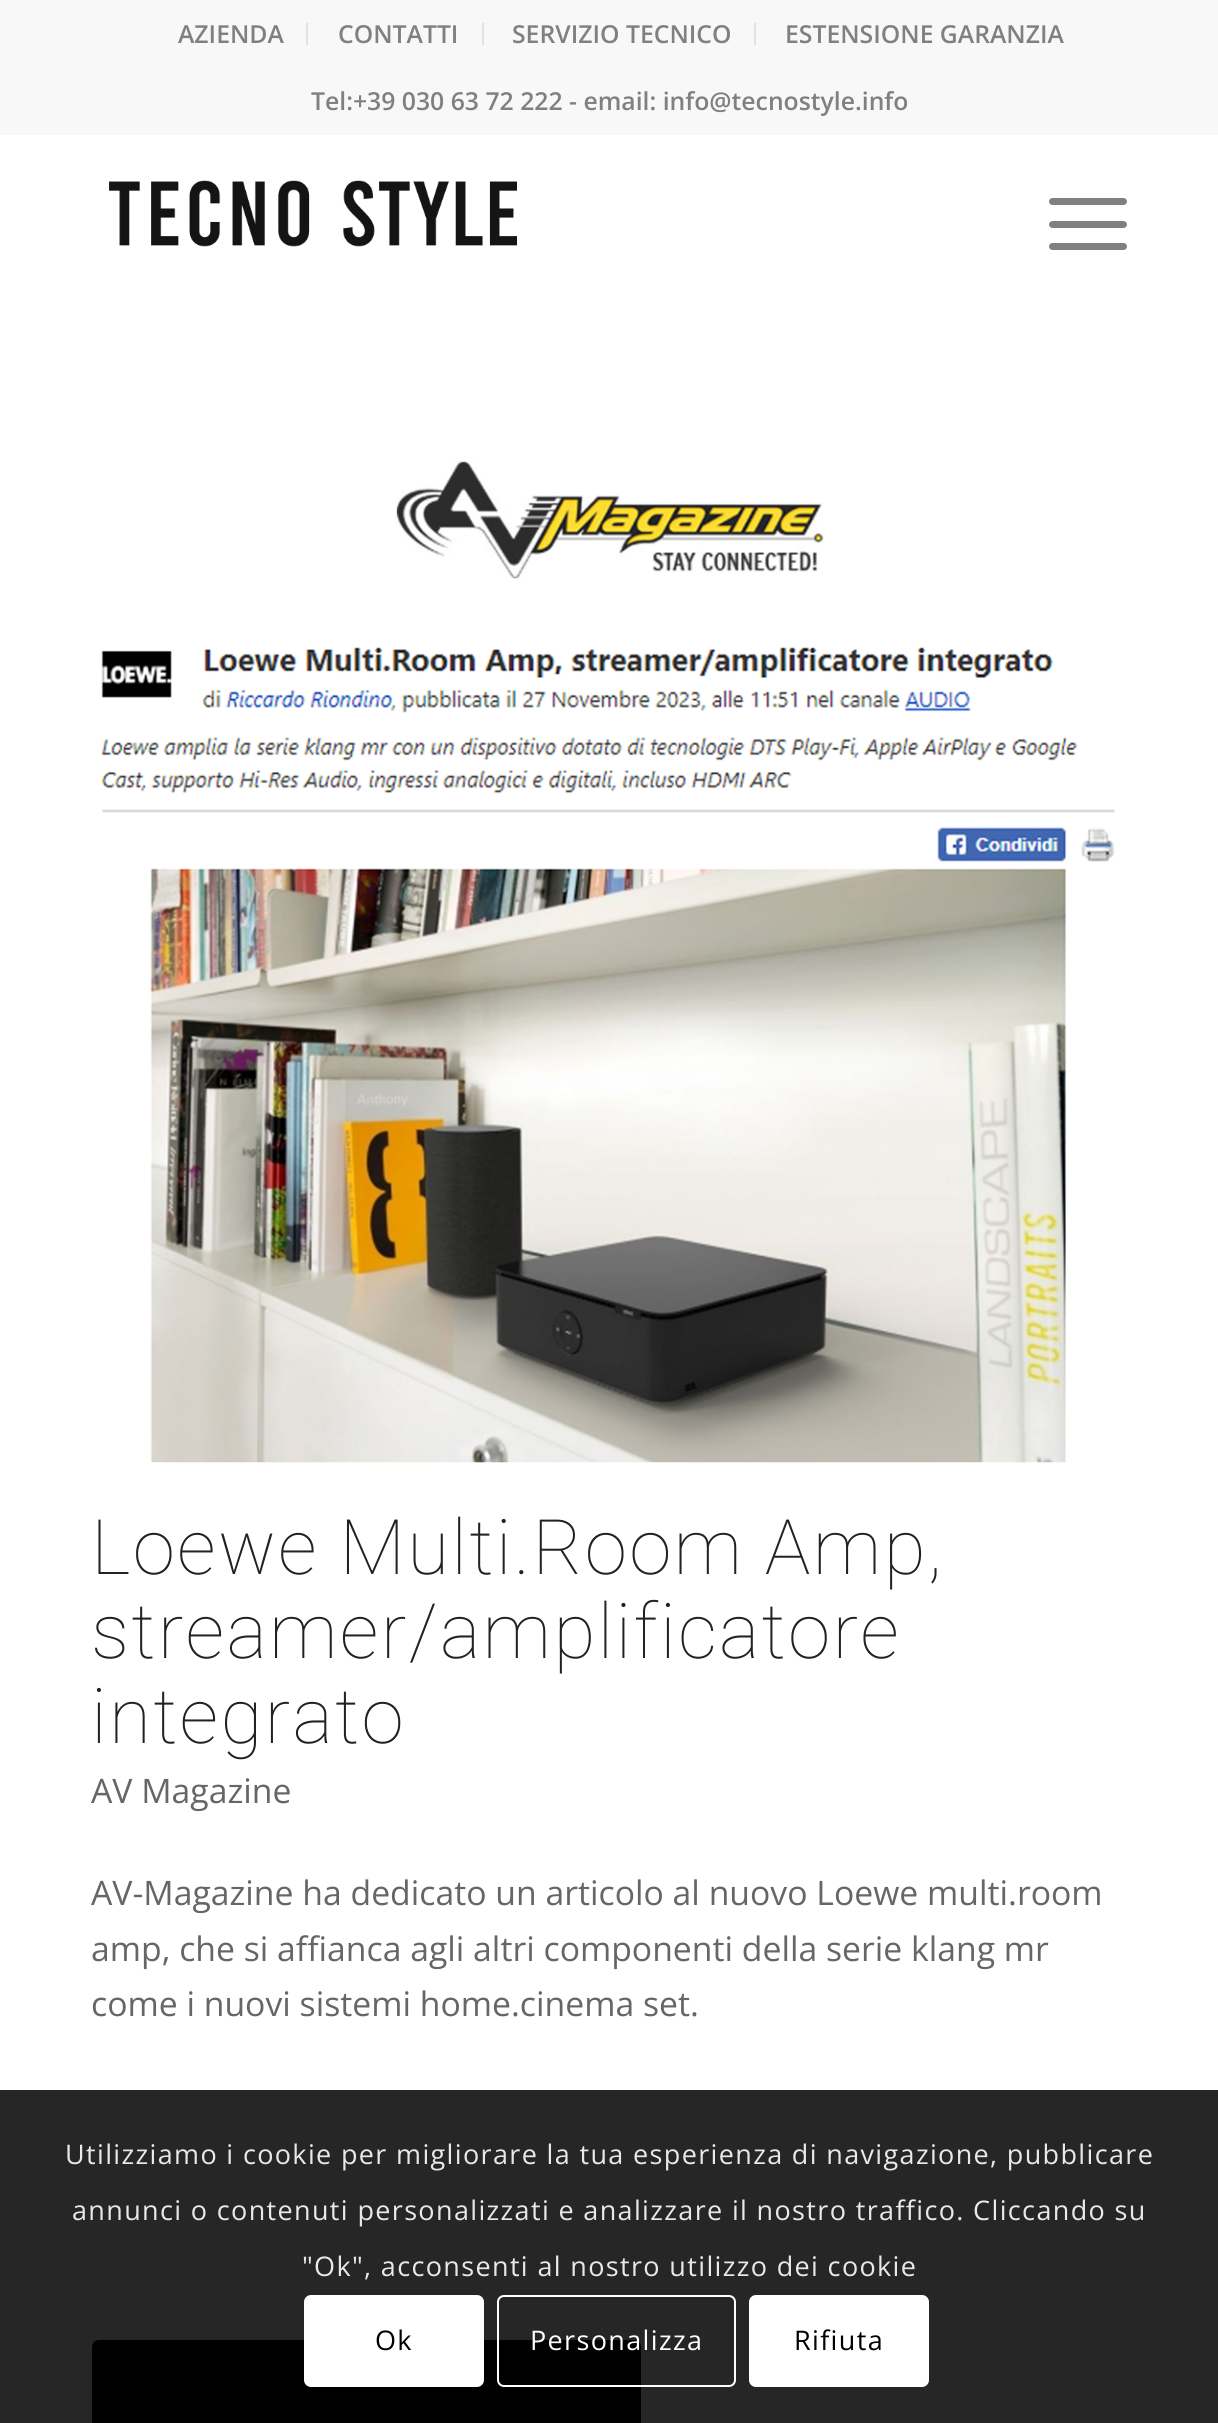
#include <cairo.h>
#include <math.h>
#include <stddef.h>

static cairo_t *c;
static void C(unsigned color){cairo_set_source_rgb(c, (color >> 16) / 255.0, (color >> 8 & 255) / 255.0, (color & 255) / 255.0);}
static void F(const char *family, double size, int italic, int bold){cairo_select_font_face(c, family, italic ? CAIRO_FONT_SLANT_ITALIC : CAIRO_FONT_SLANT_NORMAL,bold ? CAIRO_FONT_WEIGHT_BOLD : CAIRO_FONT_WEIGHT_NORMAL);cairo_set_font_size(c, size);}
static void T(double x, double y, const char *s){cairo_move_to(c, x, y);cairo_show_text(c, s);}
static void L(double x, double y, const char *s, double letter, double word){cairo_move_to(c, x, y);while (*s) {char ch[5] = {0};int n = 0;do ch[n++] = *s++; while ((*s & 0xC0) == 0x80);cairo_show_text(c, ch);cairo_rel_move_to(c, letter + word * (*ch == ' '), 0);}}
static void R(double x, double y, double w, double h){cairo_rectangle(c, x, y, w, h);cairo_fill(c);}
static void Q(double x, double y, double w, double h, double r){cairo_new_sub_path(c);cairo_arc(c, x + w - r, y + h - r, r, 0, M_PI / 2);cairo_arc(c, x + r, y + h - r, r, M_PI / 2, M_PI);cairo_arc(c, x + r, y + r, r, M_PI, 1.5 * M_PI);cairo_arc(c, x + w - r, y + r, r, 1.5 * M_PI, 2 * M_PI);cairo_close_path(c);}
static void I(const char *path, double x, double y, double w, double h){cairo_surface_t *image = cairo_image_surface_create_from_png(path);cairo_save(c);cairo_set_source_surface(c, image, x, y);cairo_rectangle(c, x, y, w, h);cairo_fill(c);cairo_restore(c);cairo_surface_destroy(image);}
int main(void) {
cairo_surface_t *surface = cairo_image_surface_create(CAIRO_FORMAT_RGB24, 1218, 2423);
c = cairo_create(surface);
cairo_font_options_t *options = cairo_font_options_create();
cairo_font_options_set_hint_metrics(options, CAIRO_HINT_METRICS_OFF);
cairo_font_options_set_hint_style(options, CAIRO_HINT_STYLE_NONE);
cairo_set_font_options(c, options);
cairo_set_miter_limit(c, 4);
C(0xffffff);
cairo_paint(c);
C(0xf8f8f8);
R(0,0,1218,135);
C(0xe1e1e1);
R(306,23,2,22);
F("Open Sans SemiBold",24.75,0,0);
C(0x808080);
T(178,43,"AZIENDA");
C(0xe1e1e1);
R(482,23,2,22);
C(0x808080);
T(338,43,"CONTATTI");
C(0xe1e1e1);
R(754,23,2,22);
C(0x808080);
T(512,43,"SERVIZIO TECNICO");
T(785,43,"ESTENSIONE GARANZIA");
T(311,110,"Tel:+39 030 63 72 222 - email: info@tecnostyle.info");
I("1.png",109,180,408,67);
Q(1049,221,78,7,3.5);
cairo_fill(c);
Q(1049,198,78,7,3.5);
cairo_fill(c);
Q(1049,243,78,7,3.5);
cairo_fill(c);
I("2.png",101,461,1014,1002);
F("Roboto Thin",76.5,0,0);
C(0x222222);
L(91,1574,"Loewe Multi.Room Amp,",2.25,0);
L(91,1658,"streamer/amplificatore",2.25,0);
L(91,1743,"integrato",2.25,0);
F("Open Sans",33.75,0,0);
C(0x666666);
T(91,1803,"AV Magazine");
T(91,1905,"AV-Magazine ha dedicato un articolo al nuovo Loewe multi.room");
T(91,1961,"amp, che si affianca agli altri componenti della serie klang mr");
T(91,2016,"come i nuovi sistemi home.cinema set.");
C(0x000000);
Q(92,2340,549,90,7);
cairo_fill(c);
cairo_set_source_rgba(c,0,0,0,0.85);
R(0,2090,1218,333);
F("Open Sans",27,0,0);
C(0xe9e9e9);
L(65,2164,"Utilizziamo i cookie per migliorare la tua esperienza di navigazione, pubblicare",1.35,0);
L(72,2220,"annunci o contenuti personalizzati e analizzare il nostro traffico. Cliccando su",1.35,0);
L(302,2276,"\"Ok\", acconsenti al nostro utilizzo dei cookie",1.35,0);
C(0xffffff);
Q(304,2295,180,92,7);
cairo_fill(c);
C(0x000000);
L(375,2350,"Ok",1.35,0);
Q(498,2296,237,90,6);
C(0xffffff);
cairo_stroke(c);
L(530,2350,"Personalizza",1.35,0);
Q(750,2296,178,90,6);
cairo_fill_preserve(c);
cairo_stroke(c);
C(0x000000);
L(794,2350,"Rifiuta",1.35,0);
cairo_surface_write_to_png(surface, "o.png");
cairo_font_options_destroy(options);
cairo_destroy(c);
cairo_surface_destroy(surface);
return 0;
}
